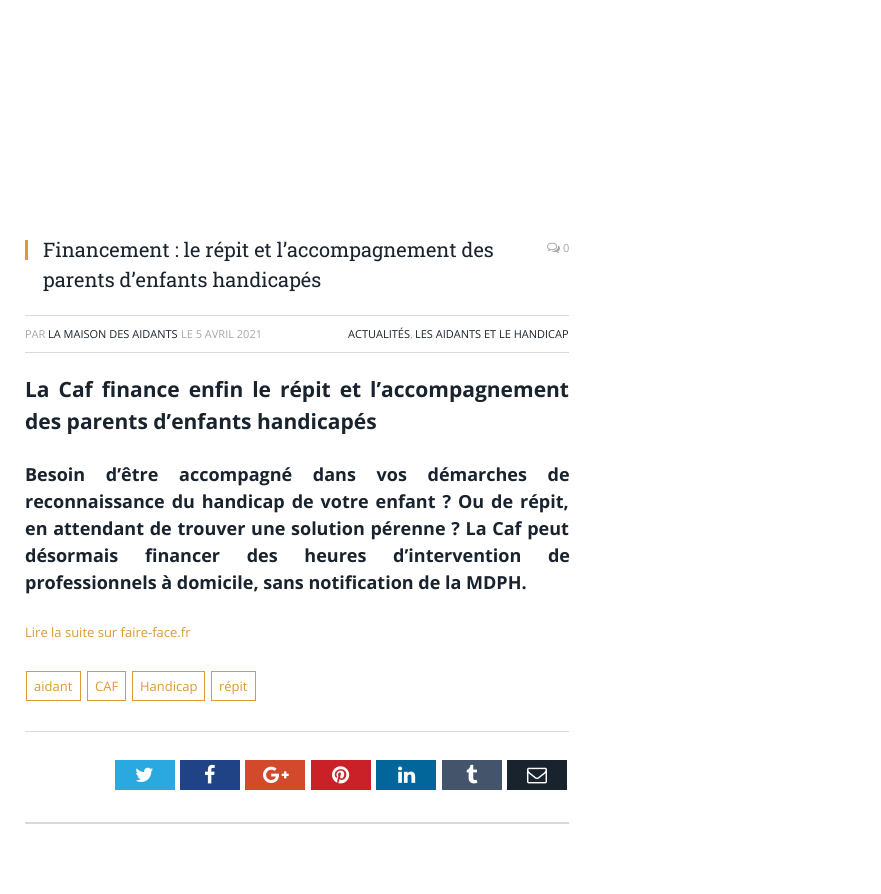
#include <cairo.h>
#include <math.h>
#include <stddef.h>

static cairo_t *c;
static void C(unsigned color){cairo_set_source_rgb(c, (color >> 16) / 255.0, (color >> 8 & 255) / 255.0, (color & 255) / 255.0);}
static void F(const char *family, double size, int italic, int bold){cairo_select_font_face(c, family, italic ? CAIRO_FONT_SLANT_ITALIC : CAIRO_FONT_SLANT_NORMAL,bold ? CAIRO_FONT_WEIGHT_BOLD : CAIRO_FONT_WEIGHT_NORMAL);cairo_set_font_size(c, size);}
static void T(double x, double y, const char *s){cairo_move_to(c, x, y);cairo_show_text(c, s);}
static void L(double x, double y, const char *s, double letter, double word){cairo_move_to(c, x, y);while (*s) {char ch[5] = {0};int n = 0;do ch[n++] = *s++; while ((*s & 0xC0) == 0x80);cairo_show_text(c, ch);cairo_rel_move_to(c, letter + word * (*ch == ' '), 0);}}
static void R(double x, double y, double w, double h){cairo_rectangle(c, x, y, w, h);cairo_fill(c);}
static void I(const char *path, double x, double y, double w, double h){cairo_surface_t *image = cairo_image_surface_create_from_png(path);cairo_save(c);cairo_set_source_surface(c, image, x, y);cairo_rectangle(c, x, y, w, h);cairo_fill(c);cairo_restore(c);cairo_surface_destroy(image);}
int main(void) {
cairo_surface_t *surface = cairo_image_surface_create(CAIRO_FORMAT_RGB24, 881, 894);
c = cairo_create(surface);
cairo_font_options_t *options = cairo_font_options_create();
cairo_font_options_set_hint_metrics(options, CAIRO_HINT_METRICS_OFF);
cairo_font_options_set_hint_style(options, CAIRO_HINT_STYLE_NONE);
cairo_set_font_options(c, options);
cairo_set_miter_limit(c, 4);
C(0xffffff);
cairo_paint(c);
C(0xdd9933);
R(25,240,3,20);
F("Roboto Slab",20,0,0);
C(0x19232d);
T(43,257,"Financement : le répit et l’accompagnement des");
T(43,287,"parents d’enfants handicapés");
I("1.png",547,242,13,11);
F("Open Sans",11,0,0);
C(0xa6a6a6);
T(563,252,"0");
C(0xd9d9d9);
R(25,315,544,1);
R(25,352,544,1);
C(0xa6a6a6);
T(25,338,"PAR");
C(0x19232d);
T(48,338,"LA MAISON DES AIDANTS");
C(0xa6a6a6);
T(181,338,"LE 5 AVRIL 2021");
C(0x19232d);
T(348,338,"ACTUALITÉS");
C(0xa6a6a6);
T(410,338,",");
C(0x19232d);
T(415,338,"LES AIDANTS ET LE HANDICAP");
F("Open Sans",21,0,1);
L(25,397,"La Caf finance enfin le répit et l’accompagnement",0,3.5);
T(25,429,"des parents d’enfants handicapés");
F("Open Sans",18,0,1);
L(25,481,"Besoin d’être accompagné dans vos démarches de",0,16);
L(25,508,"reconnaissance du handicap de votre enfant ? Ou de répit,",0,2.25);
L(25,535,"en attendant de trouver une solution pérenne ? La Caf peut",0,1);
L(25,562,"désormais financer des heures d’intervention de",0,22);
T(25,589,"professionnels à domicile, sans notification de la MDPH.");
F("Open Sans",13,0,0);
C(0xdd9933);
T(25,637,"Lire la suite sur faire-face.fr");
cairo_rectangle(c,26.5,671.5,54,29);
cairo_set_line_width(c,1);
cairo_stroke(c);
T(34,691,"aidant");
cairo_rectangle(c,87.5,671.5,38,29);
cairo_stroke(c);
T(95,691,"CAF");
cairo_rectangle(c,132.5,671.5,72,29);
cairo_stroke(c);
T(140,691,"Handicap");
cairo_rectangle(c,211.5,671.5,44,29);
cairo_stroke(c);
T(219,691,"répit");
C(0xd9d9d9);
R(25,731,544,1);
C(0x2aa9e0);
R(115,760,60,30);
I("2.png",135,767,18,15);
C(0x204385);
R(180,760,60,30);
I("3.png",205,764,10,20);
C(0xd3492c);
R(245,760,60,30);
I("4.png",263,766,26,17);
C(0xca2128);
R(311,760,60,30);
I("5.png",332,766,18,18);
C(0x02669a);
R(376,760,60,30);
I("6.png",398,766,18,17);
C(0x44546b);
R(442,760,60,30);
I("7.png",466,764,12,20);
C(0x19232d);
R(507,760,60,30);
I("8.png",527,767,20,17);
C(0xd9d9d9);
R(25,822,544,2);
cairo_surface_write_to_png(surface, "o.png");
cairo_font_options_destroy(options);
cairo_destroy(c);
cairo_surface_destroy(surface);
return 0;
}
